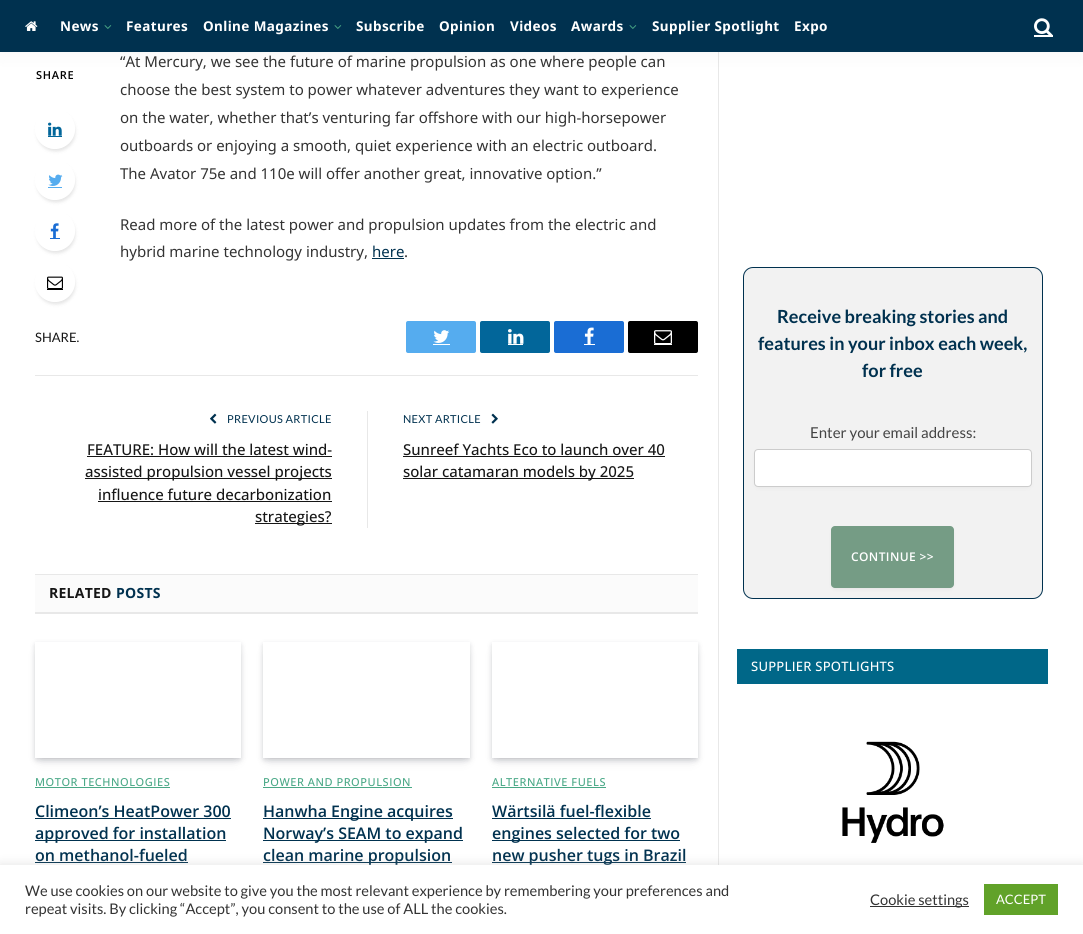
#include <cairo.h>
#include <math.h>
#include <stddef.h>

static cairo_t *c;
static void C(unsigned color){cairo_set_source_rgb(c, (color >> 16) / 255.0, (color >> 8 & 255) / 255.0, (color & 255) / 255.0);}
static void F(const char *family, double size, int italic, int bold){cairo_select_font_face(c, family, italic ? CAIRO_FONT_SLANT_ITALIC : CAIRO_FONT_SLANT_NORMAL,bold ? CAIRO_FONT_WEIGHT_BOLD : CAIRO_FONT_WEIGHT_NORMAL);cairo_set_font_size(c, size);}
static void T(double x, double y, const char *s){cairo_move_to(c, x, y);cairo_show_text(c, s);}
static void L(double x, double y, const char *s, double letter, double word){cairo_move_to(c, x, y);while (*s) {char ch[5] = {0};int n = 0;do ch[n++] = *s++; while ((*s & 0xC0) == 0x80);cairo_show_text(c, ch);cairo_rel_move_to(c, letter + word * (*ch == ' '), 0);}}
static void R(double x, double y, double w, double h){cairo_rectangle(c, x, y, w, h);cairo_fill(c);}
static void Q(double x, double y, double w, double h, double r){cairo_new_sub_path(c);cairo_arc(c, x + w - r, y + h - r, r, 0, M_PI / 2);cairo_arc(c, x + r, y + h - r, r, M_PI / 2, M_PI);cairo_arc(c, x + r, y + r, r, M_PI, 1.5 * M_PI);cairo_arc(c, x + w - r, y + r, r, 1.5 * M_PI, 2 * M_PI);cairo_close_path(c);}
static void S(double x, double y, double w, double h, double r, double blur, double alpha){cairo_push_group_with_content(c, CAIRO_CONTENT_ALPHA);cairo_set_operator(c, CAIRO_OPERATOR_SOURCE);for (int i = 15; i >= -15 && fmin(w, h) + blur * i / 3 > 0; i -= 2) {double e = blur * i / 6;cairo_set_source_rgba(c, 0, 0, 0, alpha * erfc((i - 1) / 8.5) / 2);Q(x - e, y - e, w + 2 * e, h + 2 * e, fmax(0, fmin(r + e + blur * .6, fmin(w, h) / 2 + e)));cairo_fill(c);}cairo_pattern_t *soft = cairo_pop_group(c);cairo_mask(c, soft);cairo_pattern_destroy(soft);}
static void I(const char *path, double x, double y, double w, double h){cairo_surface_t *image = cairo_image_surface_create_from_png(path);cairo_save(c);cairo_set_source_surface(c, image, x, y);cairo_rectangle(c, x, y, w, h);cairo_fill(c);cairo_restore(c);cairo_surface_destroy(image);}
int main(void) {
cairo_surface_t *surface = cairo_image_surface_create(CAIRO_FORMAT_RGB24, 1083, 934);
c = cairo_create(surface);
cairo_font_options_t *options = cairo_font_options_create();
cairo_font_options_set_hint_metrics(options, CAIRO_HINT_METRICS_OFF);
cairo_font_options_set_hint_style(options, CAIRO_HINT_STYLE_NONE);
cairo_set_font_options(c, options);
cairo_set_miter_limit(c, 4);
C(0xffffff);
cairo_paint(c);
C(0xe8e8e8);
R(718,52,1,813);
C(0x000000);
S(0,0,1083,52,0,10,.05);
C(0x00314f);
R(0,0,1083,52);
I("1.png",25,21,13,10);
F("Noto Sans",13.5,0,1);
C(0xffffff);
L(60,31,"News",.4,0);
I("2.png",104,25,8,4);
L(126,31,"Features",.4,0);
L(203,31,"Online Magazines",.4,0);
I("2.png",334,25,8,4);
L(356,31,"Subscribe",.4,0);
L(439,31,"Opinion",.4,0);
L(510,31,"Videos",.4,0);
L(571,31,"Awards",.4,0);
I("2.png",629,25,8,4);
L(652,31,"Supplier Spotlight",.4,0);
L(794,31,"Expo",.4,0);
I("3.png",1034,18,19,17);
R(1034,35,19,2);
F("Open Sans SemiBold",11,0,0);
C(0x000000);
L(36,79,"SHARE",.75,0);
cairo_save(c);
cairo_set_fill_rule(c,CAIRO_FILL_RULE_EVEN_ODD);
cairo_new_path(c);
cairo_move_to(c,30,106);
cairo_line_to(c,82,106);
cairo_line_to(c,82,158);
cairo_line_to(c,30,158);
cairo_close_path(c);
cairo_move_to(c,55,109);
cairo_curve_to(c,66,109,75,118,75,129);
cairo_curve_to(c,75,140,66,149,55,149);
cairo_curve_to(c,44,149,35,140,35,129);
cairo_curve_to(c,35,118,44,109,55,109);
cairo_close_path(c);
cairo_clip(c);
C(0x000000);
S(37,113,38,38,19,2,.12);
cairo_restore(c);
I("4.png",48,122,14,14);
C(0x02669a);
R(48,136,14,1);
cairo_save(c);
cairo_set_fill_rule(c,CAIRO_FILL_RULE_EVEN_ODD);
cairo_new_path(c);
cairo_move_to(c,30,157);
cairo_line_to(c,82,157);
cairo_line_to(c,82,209);
cairo_line_to(c,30,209);
cairo_close_path(c);
cairo_move_to(c,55,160);
cairo_curve_to(c,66,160,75,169,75,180);
cairo_curve_to(c,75,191,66,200,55,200);
cairo_curve_to(c,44,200,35,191,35,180);
cairo_curve_to(c,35,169,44,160,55,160);
cairo_close_path(c);
cairo_clip(c);
C(0x000000);
S(37,164,38,38,19,2,.12);
cairo_restore(c);
I("5.png",48,174,15,12);
C(0x55acef);
R(48,187,14,1);
cairo_save(c);
cairo_set_fill_rule(c,CAIRO_FILL_RULE_EVEN_ODD);
cairo_new_path(c);
cairo_move_to(c,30,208);
cairo_line_to(c,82,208);
cairo_line_to(c,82,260);
cairo_line_to(c,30,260);
cairo_close_path(c);
cairo_move_to(c,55,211);
cairo_curve_to(c,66,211,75,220,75,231);
cairo_curve_to(c,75,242,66,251,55,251);
cairo_curve_to(c,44,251,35,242,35,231);
cairo_curve_to(c,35,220,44,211,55,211);
cairo_close_path(c);
cairo_clip(c);
C(0x000000);
S(37,215,38,38,19,2,.12);
cairo_restore(c);
I("6.png",50,223,9,15);
C(0x1a6dd4);
R(50,238,10,1);
cairo_save(c);
cairo_set_fill_rule(c,CAIRO_FILL_RULE_EVEN_ODD);
cairo_new_path(c);
cairo_move_to(c,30,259);
cairo_line_to(c,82,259);
cairo_line_to(c,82,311);
cairo_line_to(c,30,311);
cairo_close_path(c);
cairo_move_to(c,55,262);
cairo_curve_to(c,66,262,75,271,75,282);
cairo_curve_to(c,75,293,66,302,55,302);
cairo_curve_to(c,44,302,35,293,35,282);
cairo_curve_to(c,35,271,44,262,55,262);
cairo_close_path(c);
cairo_clip(c);
C(0x000000);
S(37,266,38,38,19,2,.12);
cairo_restore(c);
I("7.png",47,276,16,13);
C(0x000000);
R(47,289,16,1);
F("Noto Sans",15,0,0);
C(0x333333);
T(120,67,"“At Mercury, we see the future of marine propulsion as one where people can");
T(120,95,"choose the best system to power whatever adventures they want to experience");
T(120,123,"on the water, whether that’s venturing far offshore with our high-horsepower");
T(120,151,"outboards or enjoying a smooth, quiet experience with an electric outboard.");
T(120,179,"The Avator 75e and 110e will offer another great, innovative option.”");
T(120,230,"Read more of the latest power and propulsion updates from the electric and");
T(120,257,"hybrid marine technology industry,");
C(0x00314f);
T(372,257,"here");
R(372,258,32,1);
C(0x333333);
T(404,257,".");
F("Lato",13,0,0);
C(0x161616);
T(35,342,"SHARE.");
C(0x55acef);
Q(406,321,70,32,2);
cairo_fill(c);
C(0xffffff);
R(433,344,17,1);
I("8.png",433,330,17,13);
C(0x02669a);
Q(480,321,70,32,2);
cairo_fill(c);
C(0xffffff);
R(508,344,15,1);
I("9.png",508,329,16,15);
C(0x1a6dd4);
Q(554,321,70,32,2);
cairo_fill(c);
C(0xffffff);
R(584,344,11,1);
I("10.png",584,327,10,17);
C(0x000000);
Q(628,321,70,32,2);
cairo_fill(c);
C(0xffffff);
R(654,344,18,1);
I("11.png",654,330,18,14);
C(0xe8e8e8);
R(35,375,663,1);
I("12.png",210,413,7,11);
F("Lato",11,0,0);
C(0x00314f);
L(227,423,"PREVIOUS ARTICLE",.3,0);
F("Open Sans Medium",15,0,0);
C(0x161616);
T(87,455,"FEATURE: How will the latest wind-");
R(87,456,245,1);
R(85,478,247,1);
T(85,477,"assisted propulsion vessel projects");
T(98,500,"influence future decarbonization");
R(98,501,234,1);
R(255,523,77,1);
T(255,522,"strategies?");
C(0xe8e8e8);
R(367,411,1,117);
F("Lato",11,0,0);
C(0x00314f);
L(403,423,"NEXT ARTICLE",.3,0);
I("13.png",491,413,7,11);
F("Open Sans Medium",15,0,0);
C(0x161616);
T(403,455,"Sunreef Yachts Eco to launch over 40");
R(403,456,262,1);
R(403,478,231,1);
T(403,477,"solar catamaran models by 2025");
C(0xfbfbfb);
R(35,575,663,37);
C(0xe8e8e8);
R(35,574,663,1);
R(35,612,663,2);
F("Open Sans",14,0,1);
C(0x161616);
L(49,598,"RELATED",.25,0);
C(0x00314f);
L(116,598,"POSTS",.25,0);
cairo_save(c);
cairo_set_fill_rule(c,CAIRO_FILL_RULE_EVEN_ODD);
cairo_new_path(c);
cairo_move_to(c,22,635);
cairo_line_to(c,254,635);
cairo_line_to(c,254,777);
cairo_line_to(c,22,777);
cairo_close_path(c);
cairo_move_to(c,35,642);
cairo_line_to(c,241,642);
cairo_line_to(c,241,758);
cairo_line_to(c,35,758);
cairo_close_path(c);
cairo_clip(c);
C(0x070a19);
S(41,654,194,104,0,6,.2);
cairo_restore(c);
cairo_save(c);
cairo_set_fill_rule(c,CAIRO_FILL_RULE_EVEN_ODD);
cairo_new_path(c);
cairo_move_to(c,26,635);
cairo_line_to(c,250,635);
cairo_line_to(c,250,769);
cairo_line_to(c,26,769);
cairo_close_path(c);
cairo_move_to(c,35,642);
cairo_line_to(c,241,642);
cairo_line_to(c,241,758);
cairo_line_to(c,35,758);
cairo_close_path(c);
cairo_clip(c);
C(0x070a19);
S(36,645,204,114,0,3,.2);
cairo_restore(c);
F("Open Sans Medium",11,0,0);
C(0x49a886);
L(35,786,"MOTOR TECHNOLOGIES",.55,0);
R(35,787,135,1);
F("Open Sans SemiBold",16,0,0);
C(0x00314f);
T(35,817,"Climeon’s HeatPower 300");
R(35,818,196,1);
R(35,840,191,1);
T(35,839,"approved for installation");
T(35,861,"on methanol-fueled");
R(35,862,153,1);
cairo_save(c);
cairo_set_fill_rule(c,CAIRO_FILL_RULE_EVEN_ODD);
cairo_new_path(c);
cairo_move_to(c,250,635);
cairo_line_to(c,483,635);
cairo_line_to(c,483,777);
cairo_line_to(c,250,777);
cairo_close_path(c);
cairo_move_to(c,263,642);
cairo_line_to(c,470,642);
cairo_line_to(c,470,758);
cairo_line_to(c,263,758);
cairo_close_path(c);
cairo_clip(c);
C(0x070a19);
S(269,654,195,104,0,6,.2);
cairo_restore(c);
cairo_save(c);
cairo_set_fill_rule(c,CAIRO_FILL_RULE_EVEN_ODD);
cairo_new_path(c);
cairo_move_to(c,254,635);
cairo_line_to(c,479,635);
cairo_line_to(c,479,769);
cairo_line_to(c,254,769);
cairo_close_path(c);
cairo_move_to(c,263,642);
cairo_line_to(c,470,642);
cairo_line_to(c,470,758);
cairo_line_to(c,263,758);
cairo_close_path(c);
cairo_clip(c);
C(0x070a19);
S(264,645,205,114,0,3,.2);
cairo_restore(c);
F("Open Sans Medium",11,0,0);
C(0x49a886);
L(263,786,"POWER AND PROPULSION",.55,0);
R(263,787,149,1);
C(0x00314f);
R(263,818,190,1);
F("Open Sans SemiBold",16,0,0);
T(263,817,"Hanwha Engine acquires");
R(263,840,200,1);
T(263,839,"Norway’s SEAM to expand");
R(263,862,189,1);
T(263,861,"clean marine propulsion");
cairo_save(c);
cairo_set_fill_rule(c,CAIRO_FILL_RULE_EVEN_ODD);
cairo_new_path(c);
cairo_move_to(c,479,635);
cairo_line_to(c,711,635);
cairo_line_to(c,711,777);
cairo_line_to(c,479,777);
cairo_close_path(c);
cairo_move_to(c,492,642);
cairo_line_to(c,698,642);
cairo_line_to(c,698,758);
cairo_line_to(c,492,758);
cairo_close_path(c);
cairo_clip(c);
C(0x070a19);
S(498,654,194,104,0,6,.2);
cairo_restore(c);
cairo_save(c);
cairo_set_fill_rule(c,CAIRO_FILL_RULE_EVEN_ODD);
cairo_new_path(c);
cairo_move_to(c,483,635);
cairo_line_to(c,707,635);
cairo_line_to(c,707,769);
cairo_line_to(c,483,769);
cairo_close_path(c);
cairo_move_to(c,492,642);
cairo_line_to(c,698,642);
cairo_line_to(c,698,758);
cairo_line_to(c,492,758);
cairo_close_path(c);
cairo_clip(c);
C(0x070a19);
S(493,645,204,114,0,3,.2);
cairo_restore(c);
F("Open Sans Medium",11,0,0);
C(0x49a886);
L(492,786,"ALTERNATIVE FUELS",.55,0);
R(492,787,114,1);
F("Open Sans SemiBold",16,0,0);
C(0x00314f);
T(492,817,"Wärtsilä fuel-flexible");
R(492,818,159,1);
R(492,840,188,1);
T(492,839,"engines selected for two");
R(492,862,194,1);
T(492,861,"new pusher tugs in Brazil");
C(0xf2f2f2);
Q(743.5,267.5,299,331,9.5);
cairo_fill_preserve(c);
C(0x00314f);
cairo_set_line_width(c,1);
cairo_stroke(c);
F("Lato",18.1,0,1);
T(777,323,"Receive breaking stories and");
T(758,350,"features in your inbox each week,");
T(862,377,"for free");
F("Lato",15,0,0);
C(0x444444);
T(810,438,"Enter your email address:");
C(0x000000);
S(758,455,270,30,0,3.5,.1);
C(0xffffff);
Q(754.5,449.5,277,37,3.5);
cairo_fill_preserve(c);
C(0xcccccc);
cairo_stroke(c);
C(0x000000);
S(835,532,115,54,0,3.5,.16);
C(0x759c85);
Q(831,526,123,62,4);
cairo_fill(c);
F("Open Sans SemiBold",12,0,0);
C(0xffffff);
L(851,561,"CONTINUE >>",.4,0);
C(0x006788);
R(737,649,311,35);
F("Open Sans Medium",13,0,0);
C(0xffffff);
L(751,671,"SUPPLIER SPOTLIGHTS",.25,0);
I("14.png",842,741,102,102);
C(0xacabab);
S(0,864,1083,69,0,5,.3);
C(0xffffff);
R(0,865,1083,69);
F("Lato",14.65,0,0);
C(0x333333);
T(25,896,"We use cookies on our website to give you the most relevant experience by remembering your preferences and");
T(25,914,"repeat visits. By clicking “Accept”, you consent to the use of ALL the cookies.");
R(870,906,99,1);
T(870,905,"Cookie settings");
C(0x61a229);
R(984,884,74,31);
F("Lato",13,0,0);
C(0xffffff);
T(996,904,"ACCEPT");
cairo_surface_write_to_png(surface, "o.png");
cairo_font_options_destroy(options);
cairo_destroy(c);
cairo_surface_destroy(surface);
return 0;
}
